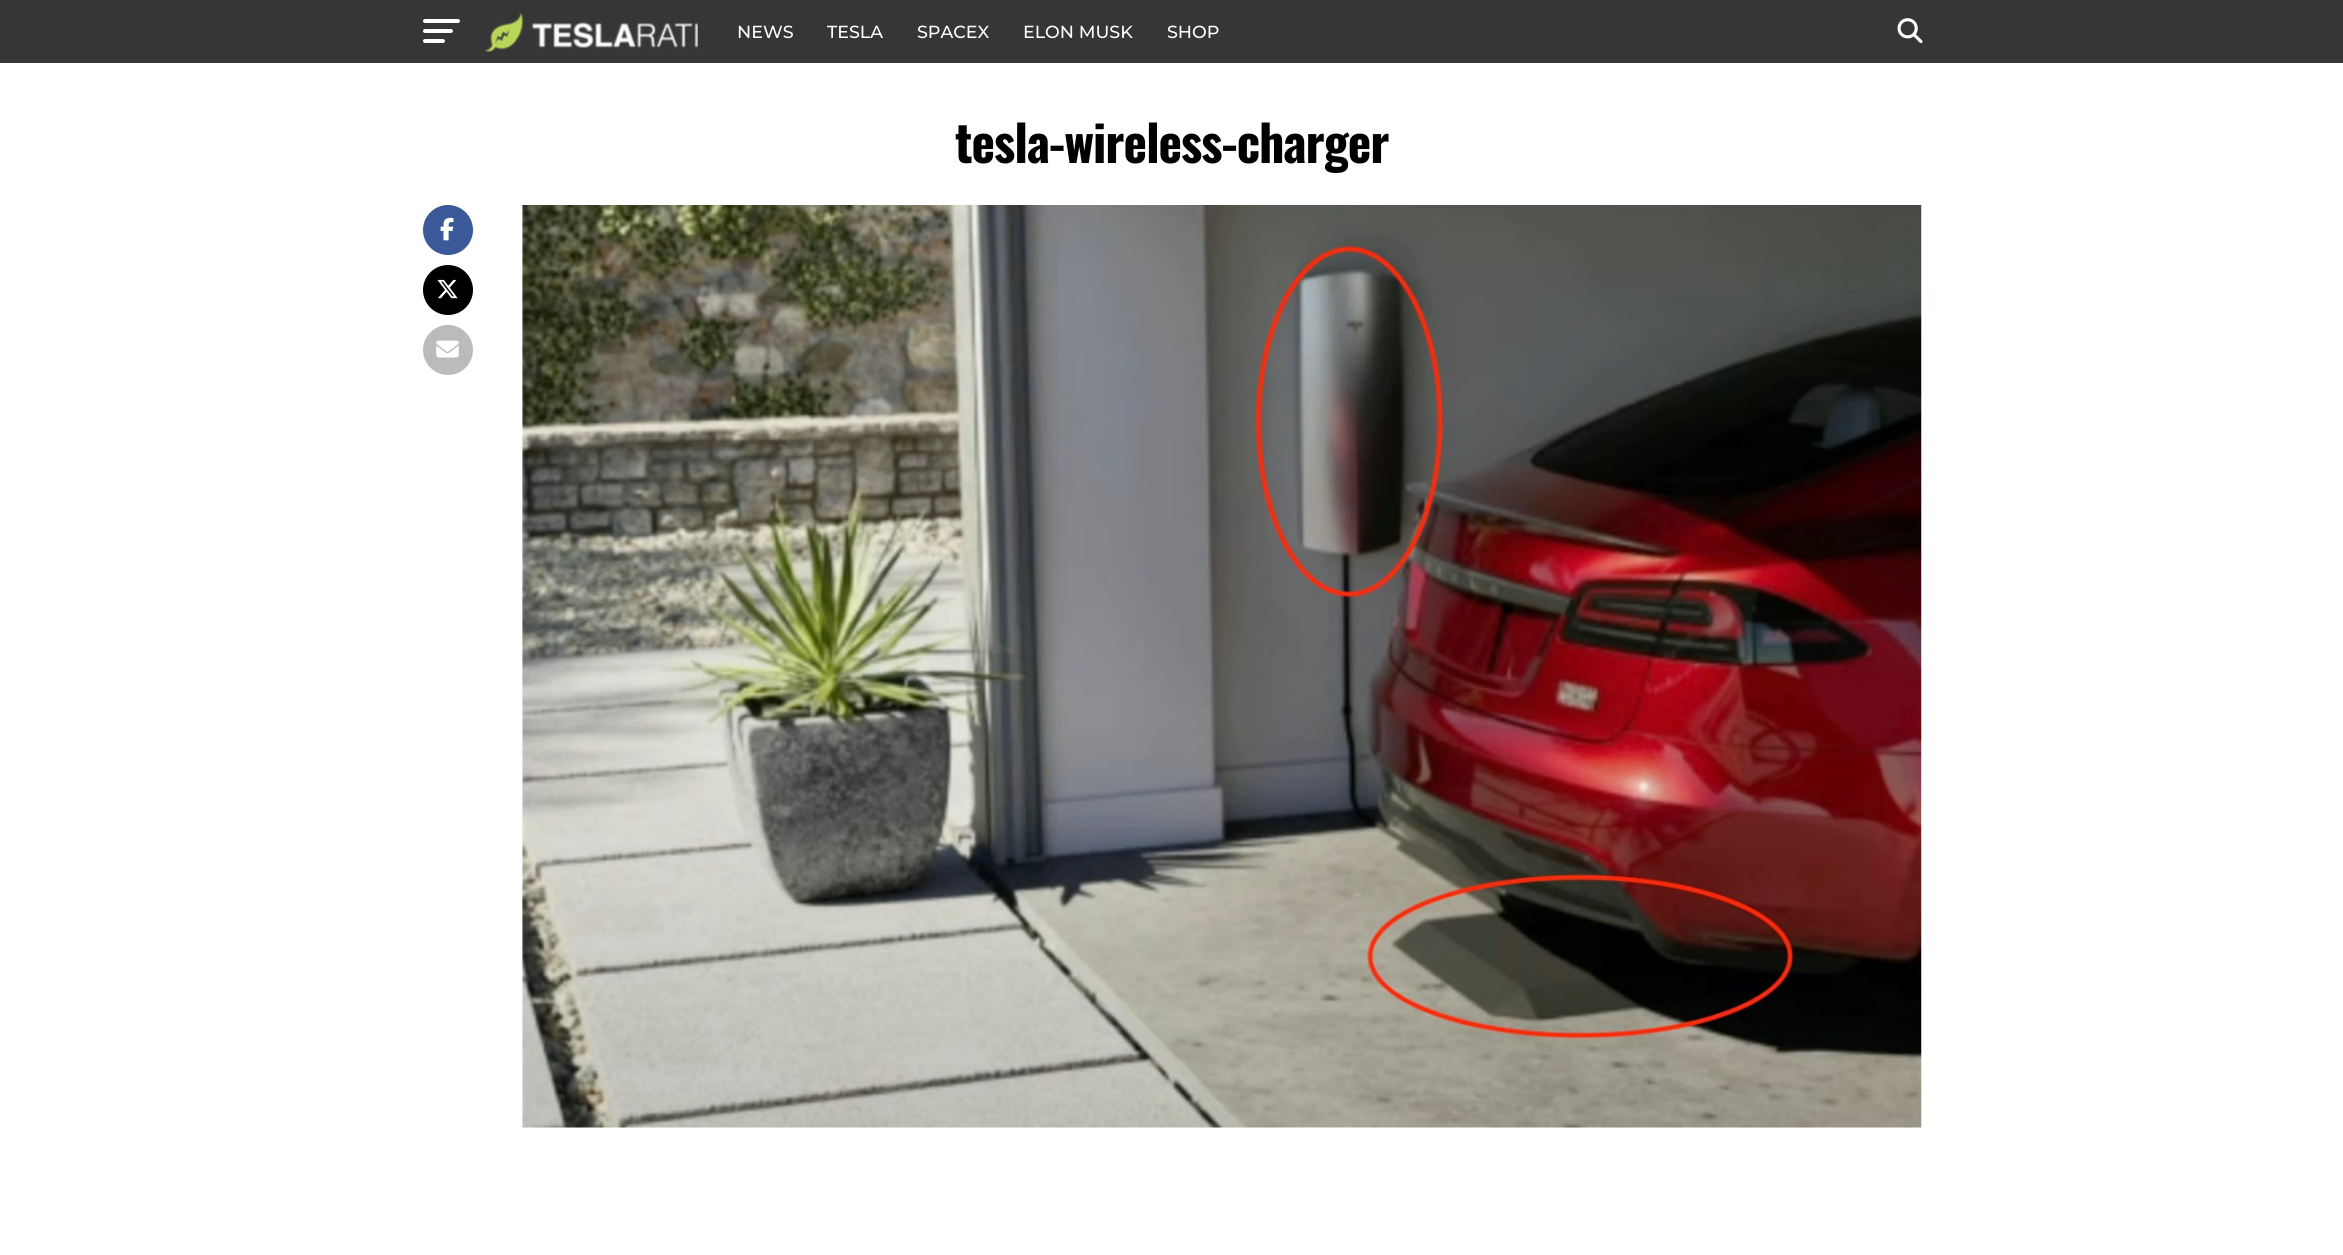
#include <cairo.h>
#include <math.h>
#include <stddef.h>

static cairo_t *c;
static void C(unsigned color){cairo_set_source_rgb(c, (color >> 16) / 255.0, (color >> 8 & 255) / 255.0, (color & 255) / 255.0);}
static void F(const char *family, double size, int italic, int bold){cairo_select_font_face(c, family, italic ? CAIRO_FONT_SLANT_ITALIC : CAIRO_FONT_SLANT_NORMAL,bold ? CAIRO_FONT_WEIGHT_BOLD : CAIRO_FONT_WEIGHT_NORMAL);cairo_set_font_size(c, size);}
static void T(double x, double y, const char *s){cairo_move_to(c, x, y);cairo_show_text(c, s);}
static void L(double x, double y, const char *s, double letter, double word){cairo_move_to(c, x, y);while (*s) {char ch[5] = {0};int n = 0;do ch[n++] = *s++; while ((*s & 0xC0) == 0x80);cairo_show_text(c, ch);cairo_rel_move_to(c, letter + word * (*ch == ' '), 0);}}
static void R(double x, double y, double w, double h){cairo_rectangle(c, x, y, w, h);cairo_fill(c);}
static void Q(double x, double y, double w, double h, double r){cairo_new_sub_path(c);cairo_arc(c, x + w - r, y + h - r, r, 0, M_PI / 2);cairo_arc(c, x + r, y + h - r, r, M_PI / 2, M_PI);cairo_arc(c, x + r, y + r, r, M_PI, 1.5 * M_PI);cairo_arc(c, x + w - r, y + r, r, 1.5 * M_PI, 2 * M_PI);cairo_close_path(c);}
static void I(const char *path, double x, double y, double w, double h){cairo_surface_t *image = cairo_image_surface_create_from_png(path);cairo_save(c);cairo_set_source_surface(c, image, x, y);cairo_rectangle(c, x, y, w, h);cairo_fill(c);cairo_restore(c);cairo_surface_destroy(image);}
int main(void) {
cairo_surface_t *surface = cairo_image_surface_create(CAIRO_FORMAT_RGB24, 2343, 1255);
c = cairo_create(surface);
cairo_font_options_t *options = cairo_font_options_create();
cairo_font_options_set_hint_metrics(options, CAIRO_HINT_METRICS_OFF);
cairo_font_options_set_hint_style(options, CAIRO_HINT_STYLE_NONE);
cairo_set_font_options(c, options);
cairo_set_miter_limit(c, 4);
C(0xffffff);
cairo_paint(c);
C(0x363636);
R(0,0,2343,63);
C(0xffffff);
Q(423,19,37,4,2);
cairo_fill(c);
Q(423,29,30,4,2);
cairo_fill(c);
Q(423,39,22,4,2);
cairo_fill(c);
I("1.png",484,12,214,40);
F("Montserrat Medium",17.5,0,0);
T(737,38,"NEWS");
T(827,38,"TESLA");
T(917,38,"SPACEX");
T(1023,38,"ELON MUSK");
T(1167,38,"SHOP");
I("2.png",1897,18,26,26);
F("Oswald",50,0,1);
C(0x000000);
L(955,163,"tesla-wireless-charger",-1,0);
C(0x3b5998);
cairo_new_path(c);
cairo_arc(c,448,230,25,0,2 * M_PI);
cairo_fill(c);
I("3.png",440,217,14,24);
C(0x000000);
cairo_arc(c,448,290,25,0,2 * M_PI);
cairo_fill(c);
I("4.png",437,279,21,20);
C(0xbbbbbb);
cairo_arc(c,448,350,25,0,2 * M_PI);
cairo_fill(c);
I("5.png",436,340,23,18);
I("6.png",522,205,1400,923);
cairo_surface_write_to_png(surface, "o.png");
cairo_font_options_destroy(options);
cairo_destroy(c);
cairo_surface_destroy(surface);
return 0;
}
